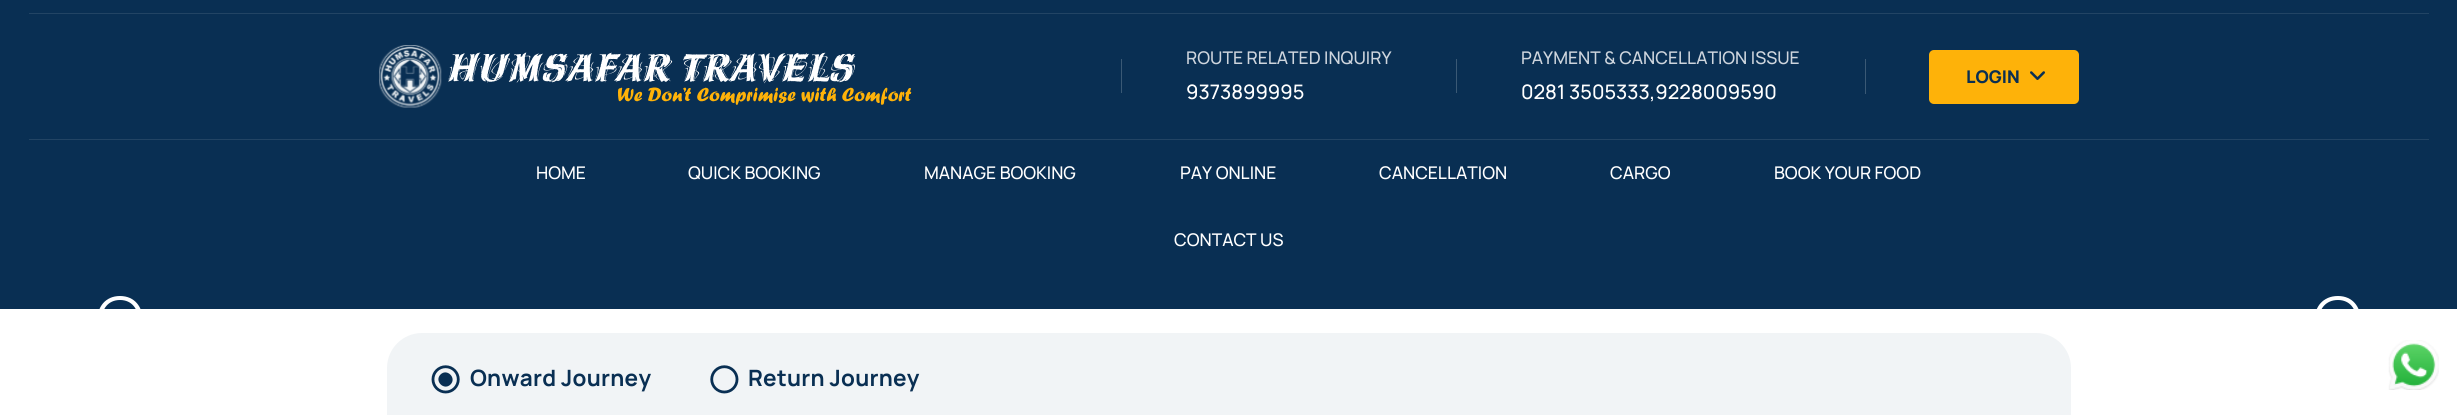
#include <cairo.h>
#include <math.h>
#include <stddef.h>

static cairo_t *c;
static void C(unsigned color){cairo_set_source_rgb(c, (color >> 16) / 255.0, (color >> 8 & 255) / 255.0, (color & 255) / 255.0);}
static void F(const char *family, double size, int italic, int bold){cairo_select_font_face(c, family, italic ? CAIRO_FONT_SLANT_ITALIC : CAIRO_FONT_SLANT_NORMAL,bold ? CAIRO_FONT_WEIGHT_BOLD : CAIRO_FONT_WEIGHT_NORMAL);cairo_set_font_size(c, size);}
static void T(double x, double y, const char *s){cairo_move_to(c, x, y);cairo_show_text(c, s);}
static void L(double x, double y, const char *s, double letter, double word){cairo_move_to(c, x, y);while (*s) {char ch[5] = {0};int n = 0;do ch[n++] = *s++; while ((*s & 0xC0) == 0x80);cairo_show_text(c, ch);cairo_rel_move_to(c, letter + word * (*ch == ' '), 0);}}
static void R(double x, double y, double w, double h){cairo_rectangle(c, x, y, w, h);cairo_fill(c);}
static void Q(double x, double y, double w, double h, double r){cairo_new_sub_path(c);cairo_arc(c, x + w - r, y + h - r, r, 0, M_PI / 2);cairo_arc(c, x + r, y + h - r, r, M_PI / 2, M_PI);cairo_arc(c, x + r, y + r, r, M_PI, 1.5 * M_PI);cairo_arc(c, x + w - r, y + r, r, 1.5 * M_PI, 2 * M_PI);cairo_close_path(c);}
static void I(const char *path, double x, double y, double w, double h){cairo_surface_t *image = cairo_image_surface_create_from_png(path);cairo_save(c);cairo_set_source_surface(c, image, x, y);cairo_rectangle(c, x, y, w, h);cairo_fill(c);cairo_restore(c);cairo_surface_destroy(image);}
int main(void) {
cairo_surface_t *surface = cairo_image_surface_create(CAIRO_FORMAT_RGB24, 2457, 415);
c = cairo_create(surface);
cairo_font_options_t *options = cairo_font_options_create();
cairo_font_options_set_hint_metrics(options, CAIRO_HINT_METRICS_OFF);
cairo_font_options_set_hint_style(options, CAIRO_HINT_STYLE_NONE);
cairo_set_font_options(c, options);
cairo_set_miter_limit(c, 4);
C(0xffffff);
cairo_paint(c);
C(0x092f53);
R(0,0,2457,309);
C(0x224464);
R(29,13,2400,1);
R(29,139,2400,1);
I("1.png",379,45,533,63);
C(0x3a5975);
R(1121,59,1,34);
F("Manrope Medium",17.5,0,0);
C(0xced5dd);
T(1186,64,"ROUTE RELATED INQUIRY");
F("Manrope Medium",20,0,0);
C(0xffffff);
T(1186,99,"9373899995");
C(0x3a5975);
R(1456,59,1,34);
F("Manrope Medium",17.5,0,0);
C(0xced5dd);
T(1521,64,"PAYMENT & CANCELLATION ISSUE");
F("Manrope Medium",20,0,0);
C(0xffffff);
T(1521,99,"0281 3505333,9228009590");
C(0x3a5975);
R(1865,59,1,35);
C(0xfeb209);
Q(1929,50,150,54,5);
cairo_fill(c);
F("Manrope ExtraBold",17.5,0,0);
C(0x092f53);
T(1966,83,"LOGIN");
I("2.png",2030,71,15,9);
F("Manrope Medium",17.5,0,0);
C(0xffffff);
T(536,179,"HOME");
T(688,179,"QUICK BOOKING");
T(924,179,"MANAGE BOOKING");
T(1180,179,"PAY ONLINE");
T(1379,179,"CANCELLATION");
T(1610,179,"CARGO");
T(1774,179,"BOOK YOUR FOOD");
T(1174,246,"CONTACT US");
cairo_new_path(c);
cairo_move_to(c,120,296);
cairo_curve_to(c,150,296,150,342,120,342);
cairo_curve_to(c,90,342,90,296,120,296);
cairo_close_path(c);
cairo_move_to(c,120,337);
cairo_curve_to(c,144,337,144,300,120,300);
cairo_curve_to(c,96,300,96,337,120,337);
cairo_close_path(c);
cairo_move_to(c,120,316);
cairo_line_to(c,129,316);
cairo_line_to(c,129,321);
cairo_line_to(c,120,321);
cairo_line_to(c,120,328);
cairo_line_to(c,111,319);
cairo_line_to(c,120,310);
cairo_close_path(c);
cairo_fill(c);
cairo_new_path(c);
cairo_move_to(c,2338,316);
cairo_line_to(c,2338,310);
cairo_line_to(c,2347,319);
cairo_line_to(c,2338,328);
cairo_line_to(c,2338,321);
cairo_line_to(c,2328,321);
cairo_line_to(c,2328,316);
cairo_close_path(c);
cairo_move_to(c,2338,296);
cairo_curve_to(c,2368,296,2368,342,2338,342);
cairo_curve_to(c,2307,342,2307,296,2338,296);
cairo_close_path(c);
cairo_move_to(c,2338,337);
cairo_curve_to(c,2362,337,2362,300,2338,300);
cairo_curve_to(c,2313,300,2313,337,2338,337);
cairo_close_path(c);
cairo_fill(c);
C(0xf1f4f6);
Q(383,329,1692,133,39);
cairo_fill_preserve(c);
C(0xffffff);
cairo_set_line_width(c,8);
cairo_stroke(c);
I("3.png",431,365,29,29);
C(0x092f53);
cairo_new_path(c);
cairo_move_to(c,440.5,374.5);
cairo_curve_to(c,447,368,457,378,450.5,384.5);
cairo_curve_to(c,444,391,434,381,440.5,374.5);
cairo_close_path(c);
cairo_fill(c);
F("Manrope",22.5,0,1);
L(470,386,"Onward Journey",.25,0);
I("4.png",710,365,29,29);
L(748,386,"Return Journey",.25,0);
I("5.png",2388,340,51,50);
cairo_surface_write_to_png(surface, "o.png");
cairo_font_options_destroy(options);
cairo_destroy(c);
cairo_surface_destroy(surface);
return 0;
}
